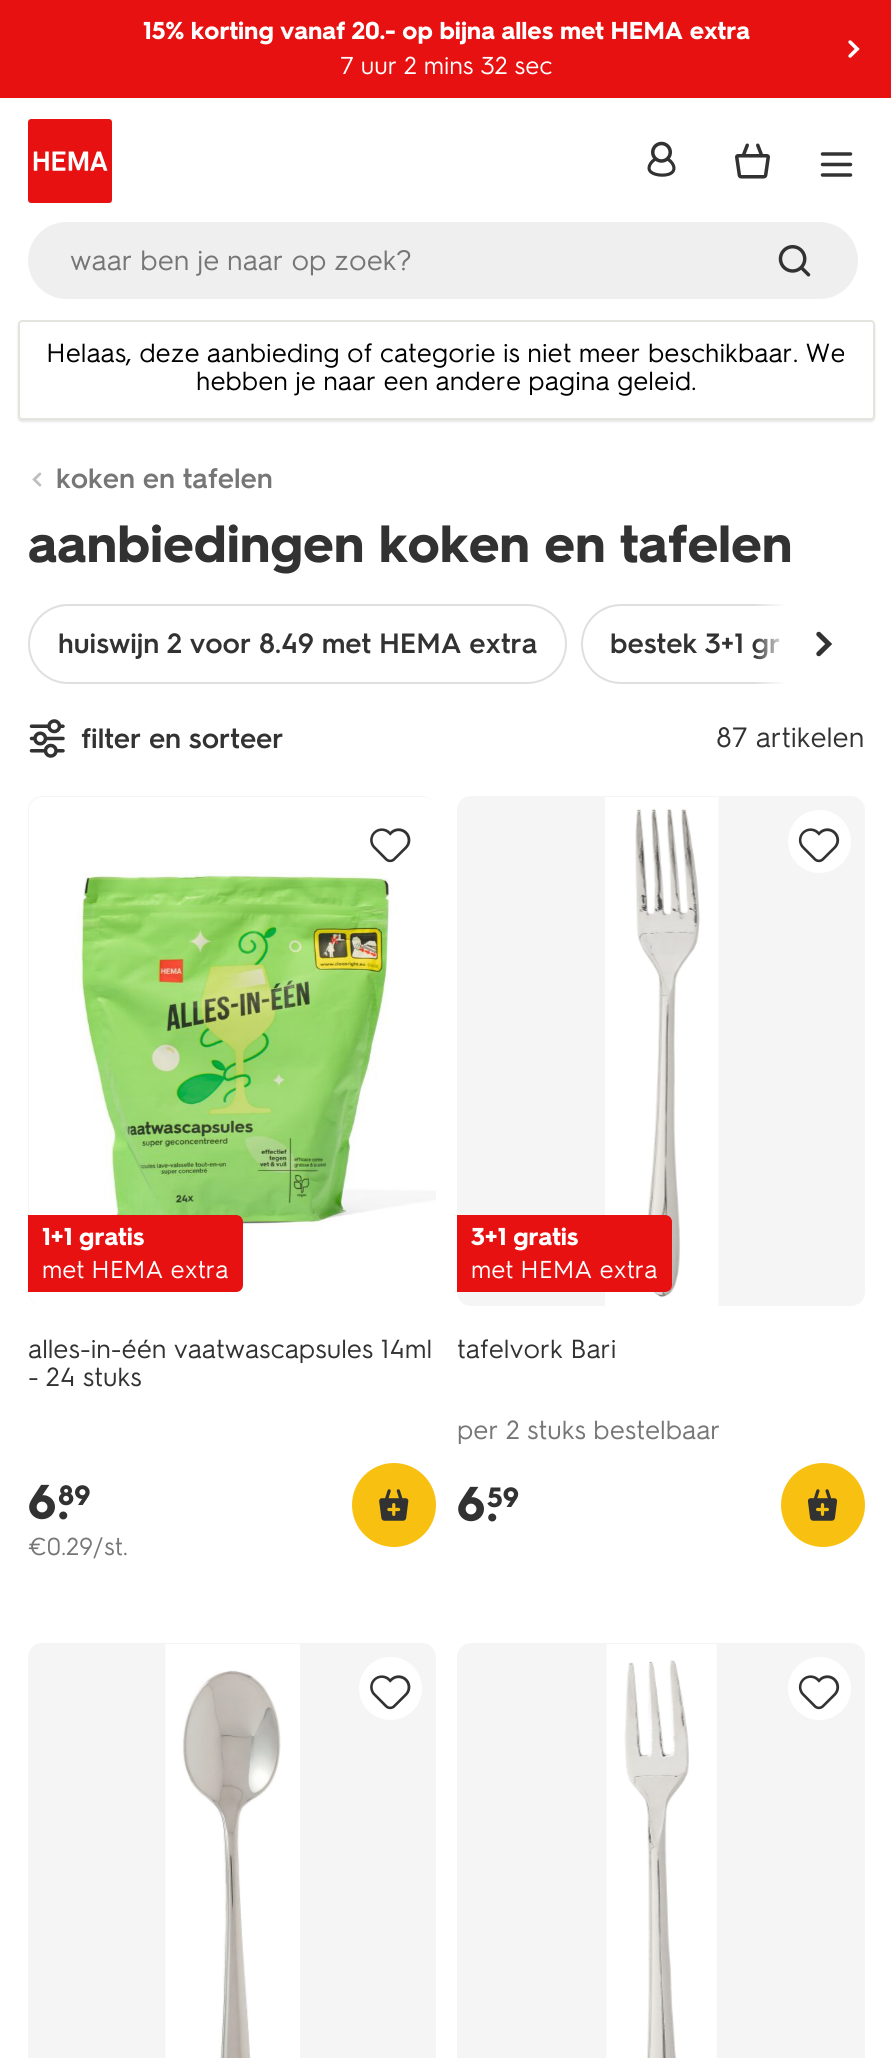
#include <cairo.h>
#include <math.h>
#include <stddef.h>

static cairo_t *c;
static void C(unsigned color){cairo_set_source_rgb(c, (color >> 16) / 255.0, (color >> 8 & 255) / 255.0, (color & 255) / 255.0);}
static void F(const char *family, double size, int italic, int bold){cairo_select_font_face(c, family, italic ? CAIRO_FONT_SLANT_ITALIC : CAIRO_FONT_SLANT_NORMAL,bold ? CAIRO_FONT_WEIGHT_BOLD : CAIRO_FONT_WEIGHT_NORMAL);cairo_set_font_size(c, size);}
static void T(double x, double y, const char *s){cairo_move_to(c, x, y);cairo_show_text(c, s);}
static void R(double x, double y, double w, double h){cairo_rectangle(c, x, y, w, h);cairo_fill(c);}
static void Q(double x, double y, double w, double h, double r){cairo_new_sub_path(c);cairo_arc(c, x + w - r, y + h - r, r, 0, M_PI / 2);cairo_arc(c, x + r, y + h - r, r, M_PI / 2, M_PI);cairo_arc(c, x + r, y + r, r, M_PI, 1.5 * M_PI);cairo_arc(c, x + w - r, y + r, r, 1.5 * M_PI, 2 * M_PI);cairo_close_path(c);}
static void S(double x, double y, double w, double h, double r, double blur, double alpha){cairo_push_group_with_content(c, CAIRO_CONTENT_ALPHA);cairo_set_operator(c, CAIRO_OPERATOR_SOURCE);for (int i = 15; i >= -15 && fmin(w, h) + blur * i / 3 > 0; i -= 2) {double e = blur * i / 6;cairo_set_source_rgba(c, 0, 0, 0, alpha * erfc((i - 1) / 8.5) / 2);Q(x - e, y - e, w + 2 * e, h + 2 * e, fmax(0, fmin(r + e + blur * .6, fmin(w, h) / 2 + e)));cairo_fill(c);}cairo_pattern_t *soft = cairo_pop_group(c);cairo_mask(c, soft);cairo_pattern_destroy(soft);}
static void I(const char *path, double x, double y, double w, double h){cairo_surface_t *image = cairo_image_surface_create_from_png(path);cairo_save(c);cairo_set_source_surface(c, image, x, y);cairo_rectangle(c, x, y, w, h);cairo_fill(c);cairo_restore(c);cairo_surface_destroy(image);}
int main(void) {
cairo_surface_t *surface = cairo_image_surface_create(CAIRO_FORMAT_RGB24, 891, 2058);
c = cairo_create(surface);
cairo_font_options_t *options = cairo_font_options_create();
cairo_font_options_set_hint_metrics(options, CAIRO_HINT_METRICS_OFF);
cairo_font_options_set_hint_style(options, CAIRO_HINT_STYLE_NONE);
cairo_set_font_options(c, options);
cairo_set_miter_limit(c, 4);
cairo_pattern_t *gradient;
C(0xffffff);
cairo_paint(c);
C(0xe81111);
R(0,0,891,98);
F("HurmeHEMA",24.5,0,1);
C(0xffffff);
T(143,39,"15% korting vanaf 20.- op bijna alles met HEMA extra");
I("1.png",848,40,12,18);
F("HurmeHEMA",24.5,0,0);
T(340,74,"7 uur 2 mins 32 sec");
I("2.png",820,152,33,25);
I("3.png",28,119,84,84);
I("4.png",647,141,29,36);
I("5.png",735,143,35,36);
C(0xefefef);
Q(28,222,830,77,38.5);
cairo_fill(c);
F("HurmeHEMA",28,0,0);
C(0x767676);
T(70,270,"waar ben je naar op zoek?");
I("6.png",778,245,33,32);
C(0x000000);
S(18,322,857,100,4,1,.1);
C(0xffffff);
Q(19,321,855,98,3);
cairo_fill_preserve(c);
C(0xe5e3de);
cairo_stroke(c);
F("HurmeHEMA",26.25,0,0);
C(0x000000);
T(46,362,"Helaas, deze aanbieding of categorie is niet meer beschikbaar. We");
T(196,390,"hebben je naar een andere pagina geleid.");
I("7.png",32,472,10,15);
F("HurmeHEMA SemiBold",28,0,0);
C(0x767676);
T(56,488,"koken en tafelen");
F("HurmeHEMA",52.5,0,1);
C(0x323232);
T(28,562,"aanbiedingen koken en tafelen");
Q(29,605,537,78,39);
C(0xdfdfdf);
cairo_stroke(c);
F("HurmeHEMA SemiBold",28,0,0);
C(0x323232);
T(58,653,"huiswijn 2 voor 8.49 met HEMA extra");
Q(582,605,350,78,39);
C(0xdfdfdf);
cairo_stroke(c);
C(0x323232);
T(610,653,"bestek 3+1 gr");
gradient = cairo_pattern_create_linear(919,644,754,644);
cairo_pattern_add_color_stop_rgba(gradient,0,1,1,1,1);
cairo_pattern_add_color_stop_rgba(gradient,.8,1,1,1,1);
cairo_pattern_add_color_stop_rgba(gradient,1,1,1,1,0);
cairo_set_source(c,gradient);
cairo_pattern_destroy(gradient);
R(755,604,136,80);
I("8.png",816,631,17,26);
I("9.png",29,719,36,39);
C(0x323232);
T(81,748,"filter en sorteer");
F("HurmeHEMA",28,0,0);
T(716,747,"87 artikelen");
C(0xf5f5f5);
Q(28,796,408,510,14);
cairo_fill(c);
I("11.png",29,797,407,509);
I("10.png",370,828,41,35);
C(0xe81111);
cairo_new_path(c);
cairo_move_to(c,28,1215);
cairo_line_to(c,236,1215);
cairo_curve_to(c,240,1215,243,1218,243,1222);
cairo_line_to(c,243,1285);
cairo_curve_to(c,243,1289,240,1292,236,1292);
cairo_line_to(c,28,1292);
cairo_close_path(c);
cairo_fill(c);
F("HurmeHEMA",24.5,0,1);
C(0xffffff);
T(42,1245,"1+1 gratis");
F("HurmeHEMA",24.5,0,0);
T(42,1278,"met HEMA extra");
F("HurmeHEMA",26.25,0,0);
C(0x323232);
T(28,1358,"alles-in-één vaatwascapsules 14ml");
T(28,1386,"- 24 stuks");
F("HurmeHEMA",49,0,1);
T(28,1519,"6");
F("HurmeHEMA",28,0,1);
T(58,1505,"89");
F("HurmeHEMA",49,0,1);
T(58,1519,".");
C(0xf8c011);
cairo_new_path(c);
cairo_arc(c,394,1505,42,0,2 * M_PI);
cairo_fill(c);
I("12.png",379,1489,30,32);
F("HurmeHEMA",24.5,0,0);
C(0x767676);
T(28,1555,"€0.29");
T(93,1555,"/st.");
C(0xf5f5f5);
Q(457,796,408,510,14);
cairo_fill(c);
C(0xffffff);
cairo_arc(c,819.5,841.5,31.5,0,2 * M_PI);
cairo_fill(c);
I("13.png",798,828,42,35);
I("14.png",605,797,114,509);
C(0xe81111);
cairo_new_path(c);
cairo_move_to(c,457,1215);
cairo_line_to(c,665,1215);
cairo_curve_to(c,669,1215,672,1218,672,1222);
cairo_line_to(c,672,1285);
cairo_curve_to(c,672,1289,669,1292,665,1292);
cairo_line_to(c,457,1292);
cairo_close_path(c);
cairo_fill(c);
F("HurmeHEMA",24.5,0,1);
C(0xffffff);
T(471,1245,"3+1 gratis");
F("HurmeHEMA",24.5,0,0);
T(471,1278,"met HEMA extra");
F("HurmeHEMA",26.25,0,0);
C(0x323232);
T(457,1358,"tafelvork Bari");
C(0x767676);
T(457,1439,"per 2 stuks bestelbaar");
F("HurmeHEMA",49,0,1);
C(0x323232);
T(457,1521,"6");
F("HurmeHEMA",28,0,1);
T(487,1507,"59");
F("HurmeHEMA",49,0,1);
T(487,1521,".");
C(0xf8c011);
cairo_new_path(c);
cairo_arc(c,823,1505,42,0,2 * M_PI);
cairo_fill(c);
I("15.png",807,1489,31,32);
C(0xf5f5f5);
Q(28,1643,408,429,14);
cairo_fill(c);
I("16.png",165,1644,135,414);
C(0xffffff);
cairo_arc(c,390.5,1688.5,31.5,0,2 * M_PI);
cairo_fill(c);
I("10.png",370,1675,41,35);
C(0xf5f5f5);
Q(457,1643,408,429,14);
cairo_fill(c);
I("17.png",606,1644,111,414);
C(0xffffff);
cairo_arc(c,819.5,1688.5,31.5,0,2 * M_PI);
cairo_fill(c);
I("13.png",798,1675,42,35);
cairo_surface_write_to_png(surface, "o.png");
cairo_font_options_destroy(options);
cairo_destroy(c);
cairo_surface_destroy(surface);
return 0;
}
